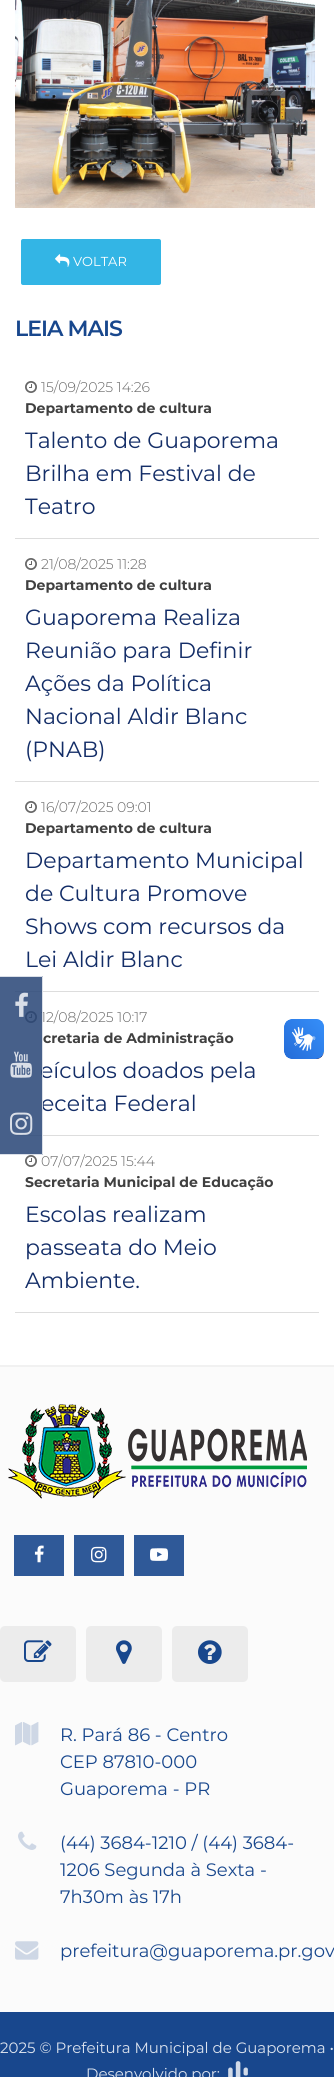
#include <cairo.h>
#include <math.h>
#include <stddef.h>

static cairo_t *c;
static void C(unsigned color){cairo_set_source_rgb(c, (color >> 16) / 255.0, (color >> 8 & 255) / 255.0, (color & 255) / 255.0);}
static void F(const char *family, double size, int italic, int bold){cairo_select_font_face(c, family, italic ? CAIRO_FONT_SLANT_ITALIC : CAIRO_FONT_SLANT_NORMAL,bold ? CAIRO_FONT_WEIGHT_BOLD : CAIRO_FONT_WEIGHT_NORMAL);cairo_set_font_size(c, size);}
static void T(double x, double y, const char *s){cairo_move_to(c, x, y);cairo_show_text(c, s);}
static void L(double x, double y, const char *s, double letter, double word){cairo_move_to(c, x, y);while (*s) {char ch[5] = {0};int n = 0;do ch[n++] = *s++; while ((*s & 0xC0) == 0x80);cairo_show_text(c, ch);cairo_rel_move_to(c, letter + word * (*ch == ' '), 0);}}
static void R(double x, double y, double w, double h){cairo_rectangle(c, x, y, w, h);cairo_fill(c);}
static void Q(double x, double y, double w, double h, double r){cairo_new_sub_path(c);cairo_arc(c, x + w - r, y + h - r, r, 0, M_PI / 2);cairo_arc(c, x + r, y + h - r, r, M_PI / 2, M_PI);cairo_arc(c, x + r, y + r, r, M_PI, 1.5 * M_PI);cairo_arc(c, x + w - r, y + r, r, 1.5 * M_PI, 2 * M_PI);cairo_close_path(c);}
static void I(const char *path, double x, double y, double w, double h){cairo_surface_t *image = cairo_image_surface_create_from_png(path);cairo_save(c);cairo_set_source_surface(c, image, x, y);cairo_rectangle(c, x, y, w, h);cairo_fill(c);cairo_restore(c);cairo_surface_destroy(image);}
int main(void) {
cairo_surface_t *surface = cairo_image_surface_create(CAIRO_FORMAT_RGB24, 334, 2077);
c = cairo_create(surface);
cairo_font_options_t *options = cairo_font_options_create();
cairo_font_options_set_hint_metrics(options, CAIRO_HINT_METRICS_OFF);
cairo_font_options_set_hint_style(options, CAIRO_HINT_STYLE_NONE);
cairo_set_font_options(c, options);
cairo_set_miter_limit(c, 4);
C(0xffffff);
cairo_paint(c);
I("1.png",15,0,300,208);
C(0x33b5e5);
Q(21,239,140,46,2);
cairo_fill(c);
I("2.png",55,254,15,13);
F("Montserrat",13,0,0);
C(0xffffff);
T(73,266,"VOLTAR");
F("Montserrat SemiBold",22,0,0);
C(0x18478d);
L(15,336,"LEIA MAIS",-1,0);
C(0xdddddd);
R(15,538,304,1);
I("3.png",25,381,12,12);
F("Montserrat Light",14,0,0);
C(0x666666);
T(41,392,"15/09/2025 14:26");
F("Montserrat",14,0,1);
C(0x404040);
T(25,413,"Departamento de cultura");
F("Montserrat",22,0,0);
C(0x132d67);
T(25,448,"Talento de Guaporema");
T(25,481,"Brilha em Festival de");
T(25,514,"Teatro");
C(0xdddddd);
R(15,781,304,1);
I("3.png",25,558,12,12);
F("Montserrat Light",14,0,0);
C(0x666666);
T(41,569,"21/08/2025 11:28");
F("Montserrat",14,0,1);
C(0x404040);
T(25,590,"Departamento de cultura");
F("Montserrat",22,0,0);
C(0x132d67);
T(25,625,"Guaporema Realiza");
T(25,658,"Reunião para Definir");
T(25,691,"Ações da Política");
T(25,724,"Nacional Aldir Blanc");
T(25,757,"(PNAB)");
C(0xdddddd);
R(15,991,304,1);
I("3.png",25,801,12,12);
F("Montserrat Light",14,0,0);
C(0x666666);
T(41,812,"16/07/2025 09:01");
F("Montserrat",14,0,1);
C(0x404040);
T(25,833,"Departamento de cultura");
F("Montserrat",22,0,0);
C(0x132d67);
T(25,868,"Departamento Municipal");
T(25,901,"de Cultura Promove");
T(25,934,"Shows com recursos da");
T(25,967,"Lei Aldir Blanc");
C(0xdddddd);
R(15,1135,304,1);
I("3.png",25,1011,12,12);
F("Montserrat Light",14,0,0);
C(0x666666);
T(41,1022,"12/08/2025 10:17");
F("Montserrat",14,0,1);
C(0x404040);
T(43,1043,"cretaria de Administração");
F("Montserrat",22,0,0);
C(0x132d67);
T(40,1078,"eículos doados pela");
T(41,1111,"eceita Federal");
C(0xdddddd);
R(15,1312,304,1);
I("3.png",25,1155,12,12);
F("Montserrat Light",14,0,0);
C(0x666666);
T(41,1166,"07/07/2025 15:44");
F("Montserrat",14,0,1);
C(0x404040);
T(25,1187,"Secretaria Municipal de Educação");
F("Montserrat",22,0,0);
C(0x132d67);
T(25,1222,"Escolas realizam");
T(25,1255,"passeata do Meio");
T(25,1288,"Ambiente.");
cairo_set_source_rgba(c,0.153,0.271,0.463,0.85);
R(0,976,43,179);
C(0xdadfe8);
cairo_new_path(c);
cairo_move_to(c,0,976);
cairo_line_to(c,43,976);
cairo_line_to(c,42,977);
cairo_line_to(c,0,977);
cairo_close_path(c);
cairo_fill(c);
cairo_set_source_rgba(c,1,1,1,0.8);
cairo_new_path(c);
cairo_move_to(c,43,976);
cairo_line_to(c,43,1155);
cairo_line_to(c,42,1154);
cairo_line_to(c,42,977);
cairo_close_path(c);
cairo_fill(c);
cairo_new_path(c);
cairo_move_to(c,43,1155);
cairo_line_to(c,0,1155);
cairo_line_to(c,0,1154);
cairo_line_to(c,42,1154);
cairo_close_path(c);
cairo_fill(c);
I("4.png",15,992,13,25);
I("5.png",10,1051,22,27);
I("6.png",10,1112,23,23);
I("7.png",284,1019,40,40);
I("8.png",284,1019,40,40);
C(0xfbfbfb);
R(0,1367,334,645);
C(0xf1f1f1);
R(0,1365,334,2);
I("9.png",8,1404,299,95);
C(0x2f5998);
R(14,1535,50,41);
I("10.png",34,1545,10,18);
R(74,1535,50,41);
I("11.png",91,1546,16,17);
R(134,1535,50,41);
I("12.png",150,1548,18,13);
C(0xececec);
Q(0,1626,76,56,5);
cairo_fill(c);
I("13.png",24,1640,28,22);
Q(86,1626,76,56,5);
cairo_fill(c);
I("14.png",116,1640,16,24);
Q(172,1626,76,56,5);
cairo_fill(c);
I("15.png",198,1640,24,24);
I("16.png",15,1722,24,24);
F("Montserrat",18,0,0);
C(0x18478d);
T(60,1741,"R. Pará 86 - Centro");
T(60,1768,"CEP 87810-000");
T(60,1795,"Guaporema - PR");
I("17.png",18,1831,19,19);
T(60,1849,"(44) 3684-1210 / (44) 3684-");
T(60,1876,"1206 Segunda à Sexta -");
T(60,1903,"7h30m às 17h");
I("18.png",15,1941,24,19);
T(60,1957,"prefeitura@guaporema.pr.gov");
R(0,2012,334,65);
F("Montserrat",15,0,0);
C(0xdce3ee);
T(0,2053,"2025 © Prefeitura Municipal de Guaporema •");
T(86,2079,"Desenvolvido por:");
I("19.png",228,2061,20,16);
cairo_surface_write_to_png(surface, "o.png");
cairo_font_options_destroy(options);
cairo_destroy(c);
cairo_surface_destroy(surface);
return 0;
}
